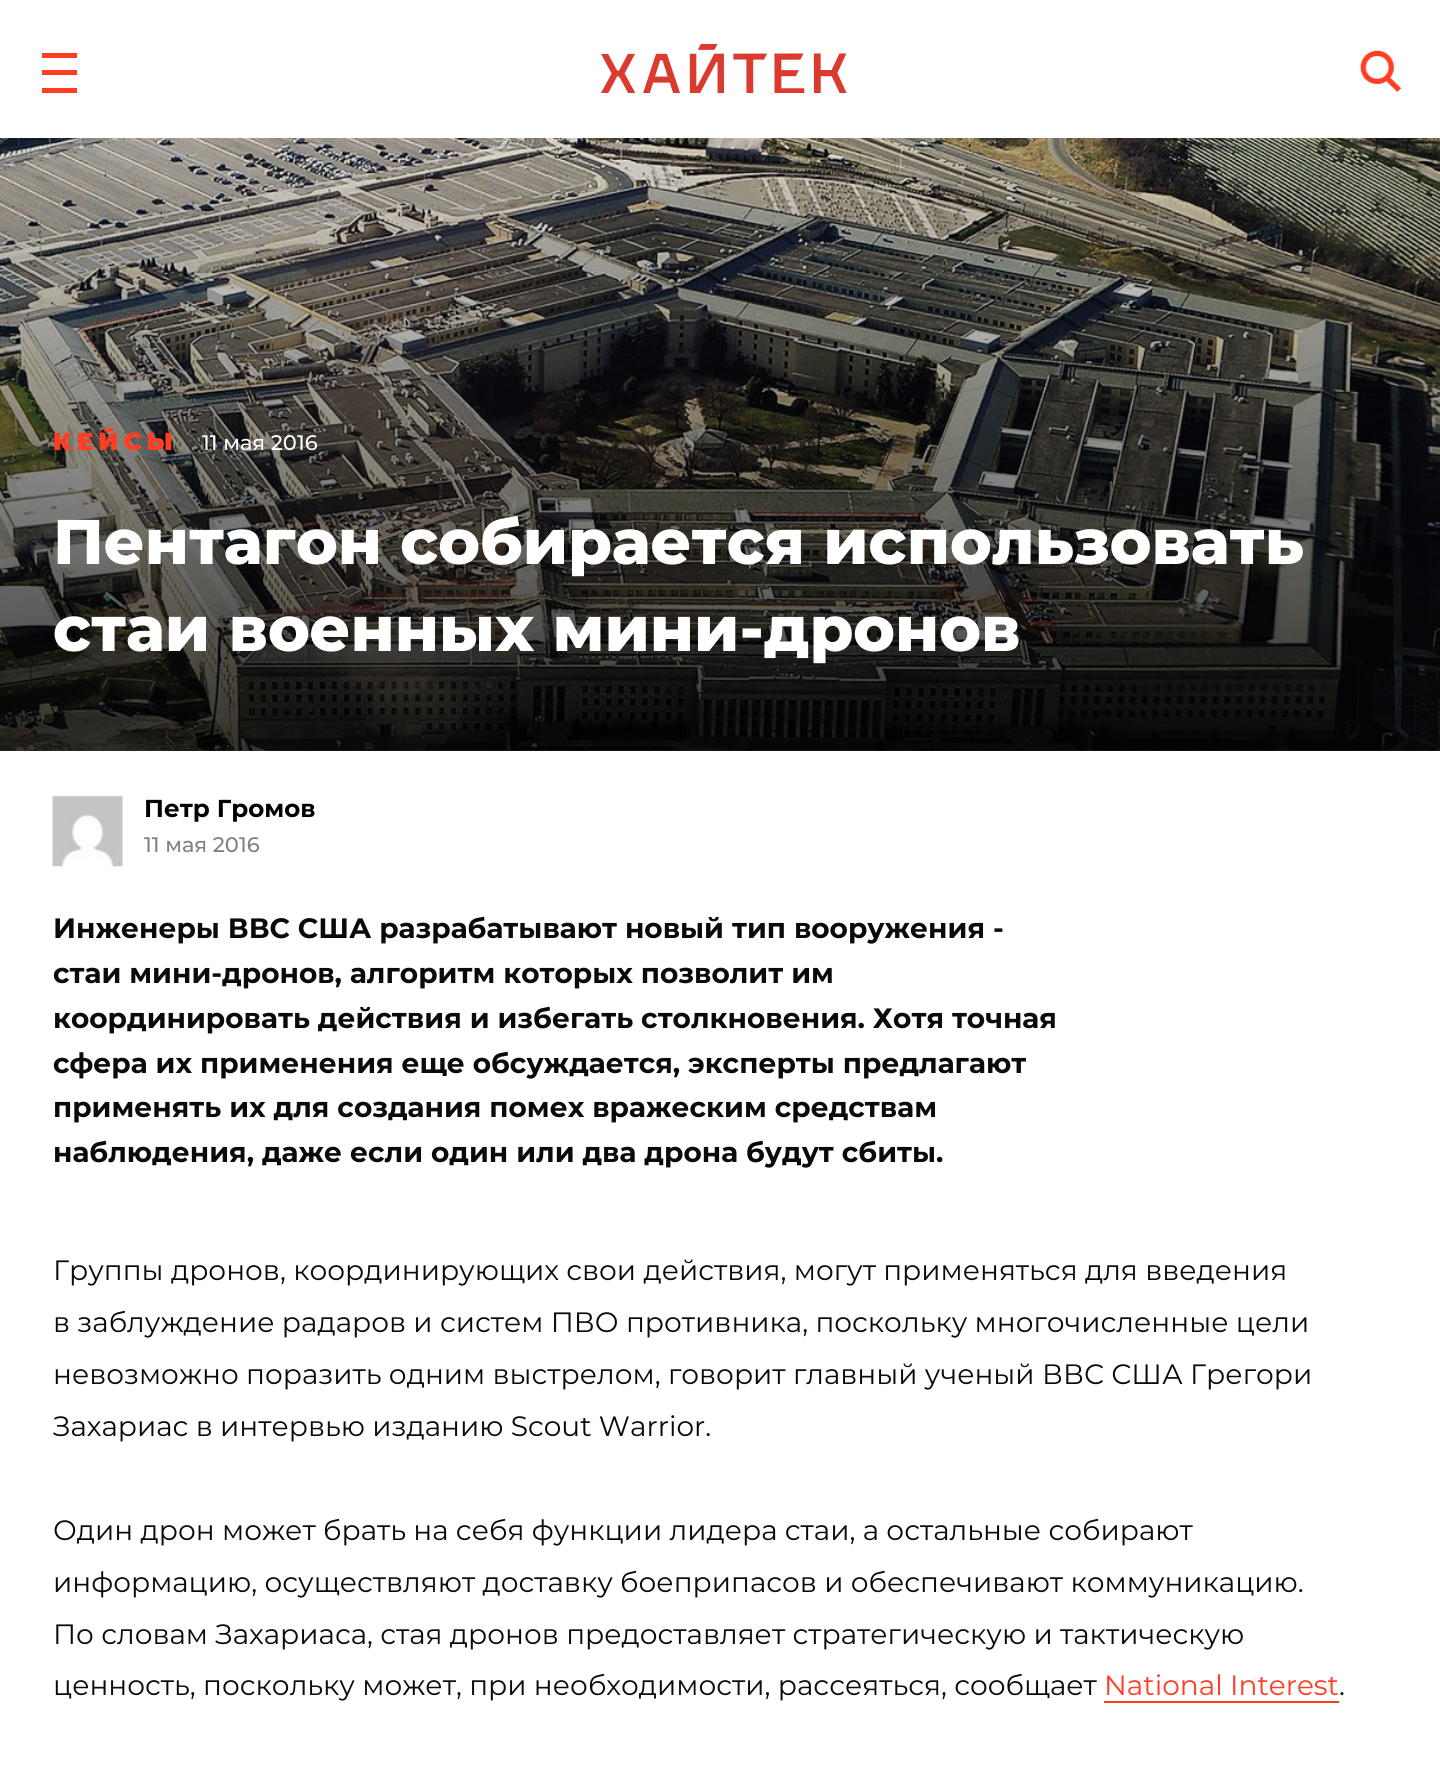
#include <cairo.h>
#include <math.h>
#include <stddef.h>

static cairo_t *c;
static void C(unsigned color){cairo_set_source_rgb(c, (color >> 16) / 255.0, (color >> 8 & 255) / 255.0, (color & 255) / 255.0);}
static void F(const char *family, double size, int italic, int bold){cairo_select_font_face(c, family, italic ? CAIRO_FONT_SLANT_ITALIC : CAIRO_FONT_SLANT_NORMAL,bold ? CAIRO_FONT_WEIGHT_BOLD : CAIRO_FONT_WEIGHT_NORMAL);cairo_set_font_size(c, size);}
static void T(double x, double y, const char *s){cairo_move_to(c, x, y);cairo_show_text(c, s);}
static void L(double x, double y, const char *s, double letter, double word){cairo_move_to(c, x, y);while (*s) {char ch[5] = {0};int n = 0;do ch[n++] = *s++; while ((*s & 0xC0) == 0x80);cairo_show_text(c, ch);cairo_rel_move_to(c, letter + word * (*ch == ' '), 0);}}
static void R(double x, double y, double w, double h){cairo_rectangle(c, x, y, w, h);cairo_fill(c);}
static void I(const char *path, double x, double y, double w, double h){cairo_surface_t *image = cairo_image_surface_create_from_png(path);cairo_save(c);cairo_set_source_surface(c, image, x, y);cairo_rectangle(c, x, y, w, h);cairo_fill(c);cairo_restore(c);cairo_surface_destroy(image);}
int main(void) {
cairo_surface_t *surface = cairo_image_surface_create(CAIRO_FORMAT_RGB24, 1440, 1774);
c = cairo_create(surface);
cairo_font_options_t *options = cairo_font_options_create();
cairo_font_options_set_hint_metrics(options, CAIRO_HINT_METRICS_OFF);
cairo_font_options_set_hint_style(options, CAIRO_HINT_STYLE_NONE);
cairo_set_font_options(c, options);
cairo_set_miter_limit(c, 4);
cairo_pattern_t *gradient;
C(0xffffff);
cairo_paint(c);
C(0xff3e24);
R(42,70,35,5);
R(42,53,35,5);
R(42,88,35,5);
I("1.png",601,44,246,49);
I("2.png",1359,50,43,42);
I("3.png",0,138,1440,613);
gradient = cairo_pattern_create_linear(720,98,720,751);
cairo_pattern_add_color_stop_rgba(gradient,0,0,0,0,0);
cairo_pattern_add_color_stop_rgba(gradient,1,0,0,0,.78);
cairo_set_source(c,gradient);
cairo_pattern_destroy(gradient);
R(0,138,1440,613);
F("Montserrat Black",24.5,0,0);
C(0xff3e24);
L(53,450,"КЕЙСЫ",5,0);
F("Montserrat Medium",21,0,0);
C(0xffffff);
T(202,450,"11 мая 2016");
F("Montserrat ExtraBold",63,0,0);
T(53,564,"Пентагон собирается использовать");
T(53,651,"стаи военных мини-дронов");
C(0xf2f2f2);
R(53,796,70,70);
I("4.png",52,796,71,71);
F("Montserrat",24.5,0,1);
C(0x000000);
T(144,817,"Петр Громов");
F("Montserrat Medium",21,0,0);
C(0x818183);
T(144,852,"11 мая 2016");
F("Montserrat",28,0,1);
C(0x0a0a0a);
T(53,938,"Инженеры ВВС США разрабатывают новый тип вооружения -");
T(53,983,"стаи мини-дронов, алгоритм которых позволит им");
T(53,1028,"координировать действия и избегать столкновения. Хотя точная");
T(53,1073,"сфера их применения еще обсуждается, эксперты предлагают");
T(53,1117,"применять их для создания помех вражеским средствам");
T(53,1162,"наблюдения, даже если один или два дрона будут сбиты.");
F("Montserrat",28,0,0);
T(53,1280,"Группы дронов, координирующих свои действия, могут применяться для введения");
T(53,1332,"в заблуждение радаров и систем ПВО противника, поскольку многочисленные цели");
T(53,1384,"невозможно поразить одним выстрелом, говорит главный ученый ВВС США Грегори");
T(53,1436,"Захариас в интервью изданию Scout Warrior.");
T(53,1540,"Один дрон может брать на себя функции лидера стаи, а остальные собирают");
T(53,1592,"информацию, осуществляют доставку боеприпасов и обеспечивают коммуникацию.");
T(53,1644,"По словам Захариаса, стая дронов предоставляет стратегическую и тактическую");
T(53,1695,"ценность, поскольку может, при необходимости, рассеяться, сообщает");
C(0xff3e24);
T(1104,1695,"National Interest");
R(1104,1701,235,2);
C(0x0a0a0a);
T(1339,1695,".");
cairo_surface_write_to_png(surface, "o.png");
cairo_font_options_destroy(options);
cairo_destroy(c);
cairo_surface_destroy(surface);
return 0;
}
